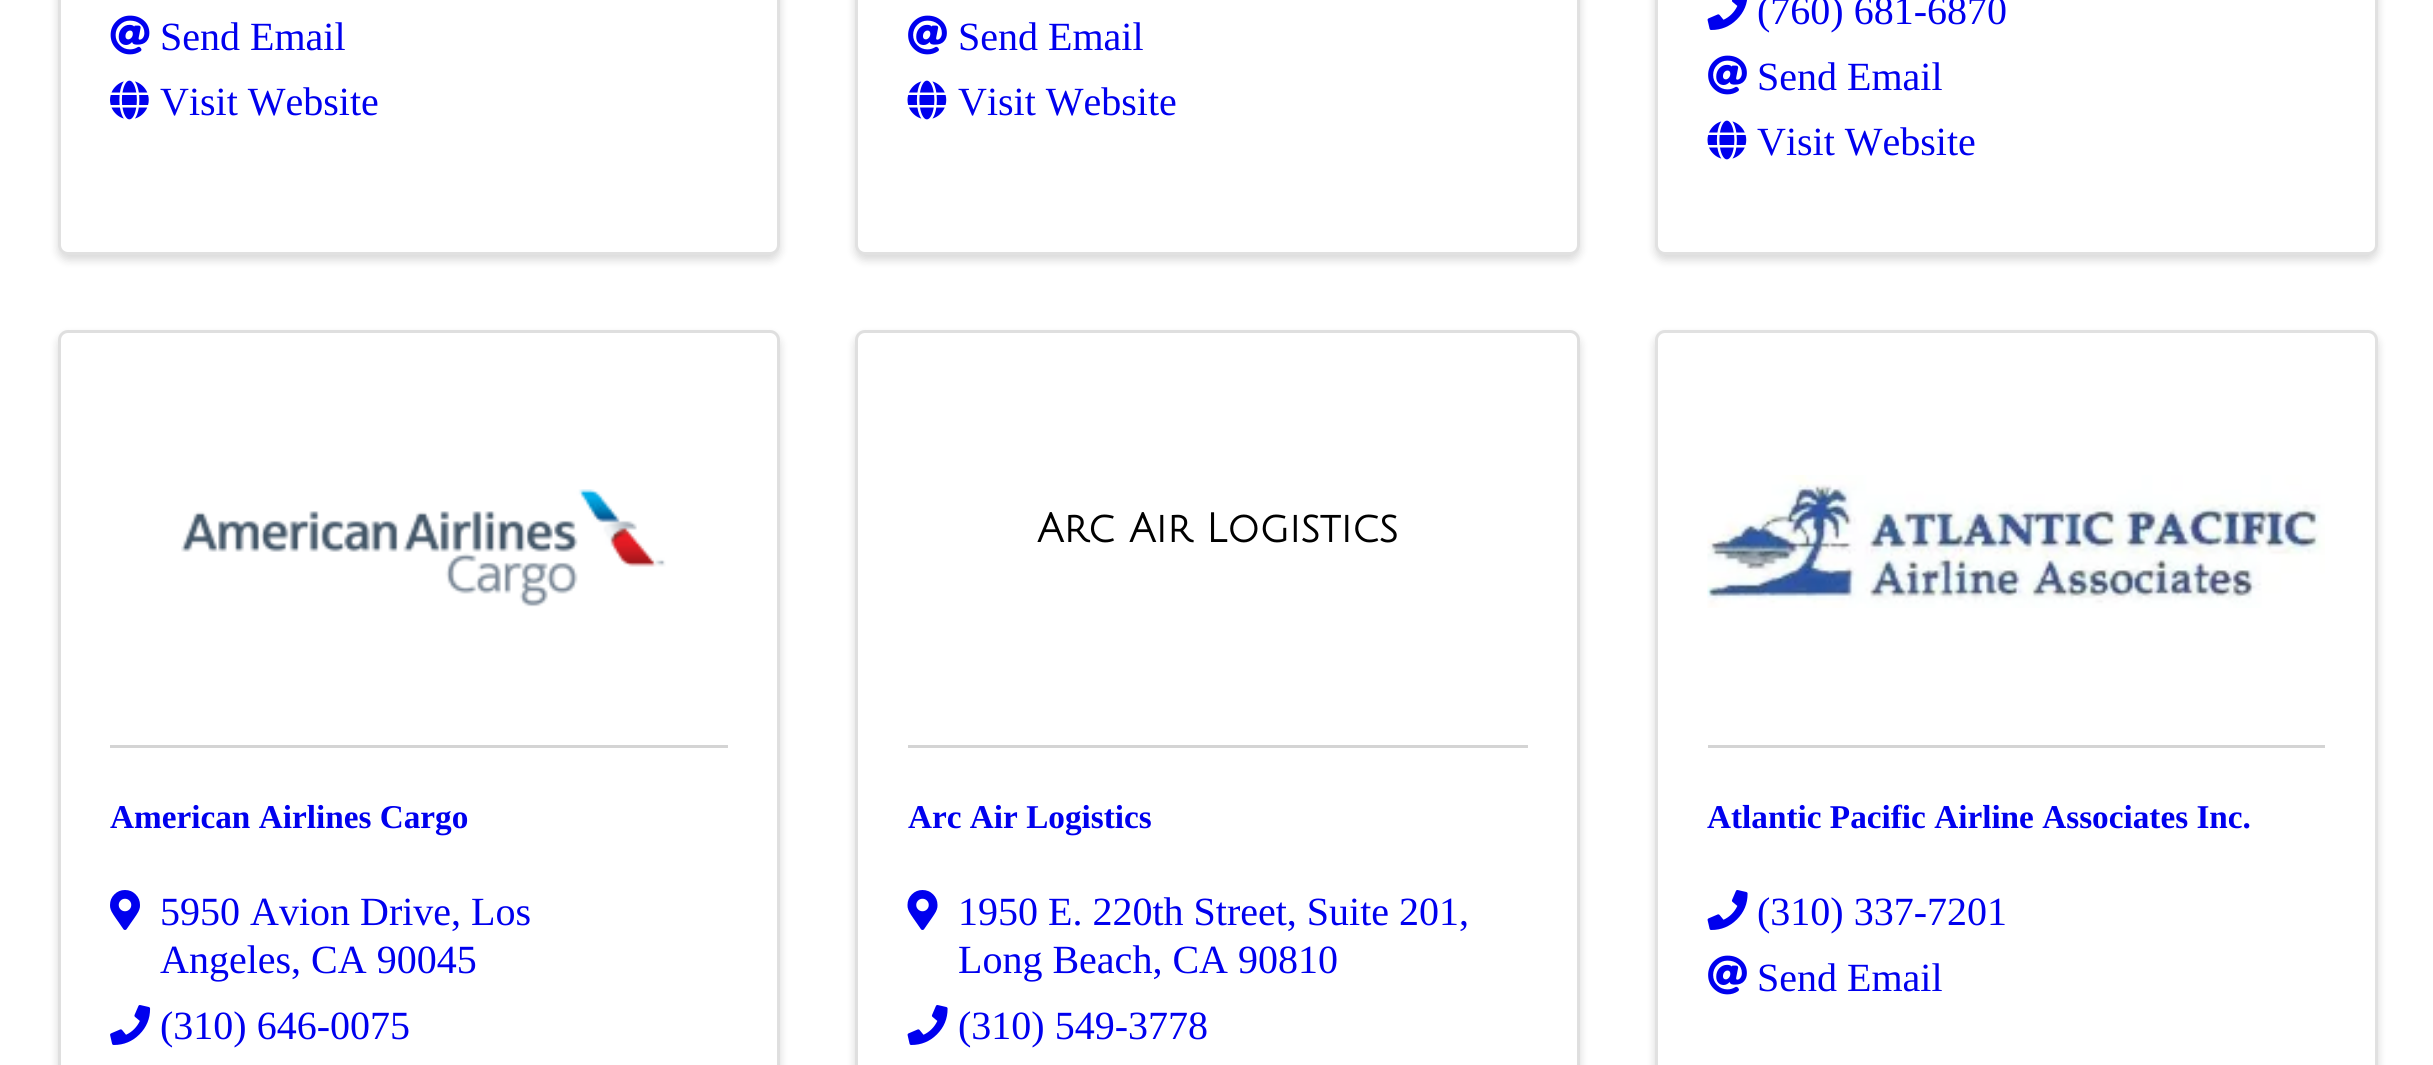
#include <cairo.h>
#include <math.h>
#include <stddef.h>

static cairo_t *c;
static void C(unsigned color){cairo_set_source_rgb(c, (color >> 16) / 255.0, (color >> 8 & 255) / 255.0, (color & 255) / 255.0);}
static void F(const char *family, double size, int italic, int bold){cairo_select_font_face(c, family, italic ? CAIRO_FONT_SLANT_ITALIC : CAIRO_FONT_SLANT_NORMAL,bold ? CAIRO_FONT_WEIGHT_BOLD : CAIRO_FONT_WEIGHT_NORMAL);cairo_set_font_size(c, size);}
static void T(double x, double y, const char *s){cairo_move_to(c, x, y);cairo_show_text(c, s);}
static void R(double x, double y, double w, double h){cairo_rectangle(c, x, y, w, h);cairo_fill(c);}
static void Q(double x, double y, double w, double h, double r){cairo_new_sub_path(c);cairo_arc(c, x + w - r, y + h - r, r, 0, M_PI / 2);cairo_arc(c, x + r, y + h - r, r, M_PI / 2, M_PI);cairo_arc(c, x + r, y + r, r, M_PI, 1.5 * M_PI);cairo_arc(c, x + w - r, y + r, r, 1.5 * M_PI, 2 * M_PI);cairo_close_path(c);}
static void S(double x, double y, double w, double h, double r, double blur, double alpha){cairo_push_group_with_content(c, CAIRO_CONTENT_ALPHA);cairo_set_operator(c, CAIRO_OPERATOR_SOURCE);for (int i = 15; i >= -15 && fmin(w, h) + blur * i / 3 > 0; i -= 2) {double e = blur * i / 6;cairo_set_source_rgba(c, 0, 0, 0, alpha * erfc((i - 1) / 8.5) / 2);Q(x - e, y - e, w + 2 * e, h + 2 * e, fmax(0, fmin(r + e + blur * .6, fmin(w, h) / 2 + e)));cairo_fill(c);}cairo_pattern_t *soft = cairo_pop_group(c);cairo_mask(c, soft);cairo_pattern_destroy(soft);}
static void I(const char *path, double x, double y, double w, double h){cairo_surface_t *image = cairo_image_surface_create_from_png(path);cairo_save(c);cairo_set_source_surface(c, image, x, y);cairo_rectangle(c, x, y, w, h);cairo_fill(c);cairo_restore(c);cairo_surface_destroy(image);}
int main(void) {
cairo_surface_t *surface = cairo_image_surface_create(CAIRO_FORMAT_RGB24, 2433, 1065);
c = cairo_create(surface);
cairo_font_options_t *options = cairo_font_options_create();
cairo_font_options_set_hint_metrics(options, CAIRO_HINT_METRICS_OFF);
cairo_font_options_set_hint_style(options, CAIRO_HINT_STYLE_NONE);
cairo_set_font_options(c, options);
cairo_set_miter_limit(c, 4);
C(0xffffff);
cairo_paint(c);
C(0x000000);
S(58,-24,722,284,10,4.5,.15);
C(0xffffff);
Q(58,-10,722,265,10);
cairo_fill(c);
Q(59.5,-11.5,719,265,8.5);
cairo_set_source_rgba(c,0,0,0,0.12);
cairo_set_line_width(c,3);
cairo_stroke(c);
I("1.png",110,15,40,40);
F("Liberation Serif",40,0,0);
C(0x0000ee);
T(160,50,"Send Email");
I("2.png",110,80,39,40);
T(160,115,"Visit Website");
C(0x000000);
S(855,-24,725,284,10,4.5,.15);
C(0xffffff);
Q(855,-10,725,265,10);
cairo_fill(c);
Q(856.5,-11.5,722,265,8.5);
cairo_set_source_rgba(c,0,0,0,0.12);
cairo_stroke(c);
I("3.png",908,15,39,40);
C(0x0000ee);
T(958,50,"Send Email");
I("4.png",907,80,40,40);
T(958,115,"Visit Website");
C(0x000000);
S(1655,-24,723,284,10,4.5,.15);
C(0xffffff);
Q(1655,-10,723,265,10);
cairo_fill(c);
Q(1656.5,-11.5,720,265,8.5);
cairo_set_source_rgba(c,0,0,0,0.12);
cairo_stroke(c);
I("5.png",1707,0,40,30);
C(0x0000ee);
T(1757,24,"(760) 681-6870");
I("3.png",1708,55,39,40);
T(1757,90,"Send Email");
I("4.png",1707,120,40,40);
T(1757,155,"Visit Website");
C(0x000000);
S(58,335,722,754,10,4.5,.15);
C(0xffffff);
Q(59.5,331.5,719,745,8.5);
cairo_fill_preserve(c);
C(0xdfdfdf);
cairo_stroke(c);
I("6.png",181,489,485,118);
C(0xd4d4d4);
R(110,745,618,3);
F("Liberation Serif",33.25,0,1);
C(0x0000ee);
T(110,828,"American Airlines Cargo");
I("7.png",110,890,30,40);
F("Liberation Serif",40,0,0);
T(160,925,"5950 Avion Drive, Los");
T(160,973,"Angeles, CA 90045");
I("8.png",110,1005,41,40);
T(160,1039,"(310) 646-0075");
C(0x000000);
S(855,335,725,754,10,4.5,.15);
C(0xffffff);
Q(856.5,331.5,722,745,8.5);
cairo_fill_preserve(c);
C(0xdfdfdf);
cairo_stroke(c);
F("Julius Sans One",40,0,1);
C(0x000000);
T(1037,542,"Arc Air Logistics");
C(0xd4d4d4);
R(908,745,620,3);
F("Liberation Serif",33.25,0,1);
C(0x0000ee);
T(908,828,"Arc Air Logistics");
I("9.png",907,890,31,40);
F("Liberation Serif",40,0,0);
T(958,925,"1950 E. 220th Street, Suite 201,");
T(958,973,"Long Beach, CA 90810");
I("10.png",907,1005,41,40);
T(958,1039,"(310) 549-3778");
C(0x000000);
S(1655,335,723,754,10,4.5,.15);
C(0xffffff);
Q(1655,330,723,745,10);
cairo_fill(c);
Q(1656.5,331.5,720,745,8.5);
cairo_set_source_rgba(c,0,0,0,0.12);
cairo_stroke(c);
I("11.png",1707,475,618,133);
C(0xd4d4d4);
R(1708,745,617,3);
F("Liberation Serif",33.25,0,1);
C(0x0000ee);
T(1707,828,"Atlantic Pacific Airline Associates Inc.");
I("10.png",1707,890,41,40);
F("Liberation Serif",40,0,0);
T(1757,925,"(310) 337-7201");
I("3.png",1708,955,39,40);
T(1757,991,"Send Email");
cairo_surface_write_to_png(surface, "o.png");
cairo_font_options_destroy(options);
cairo_destroy(c);
cairo_surface_destroy(surface);
return 0;
}
